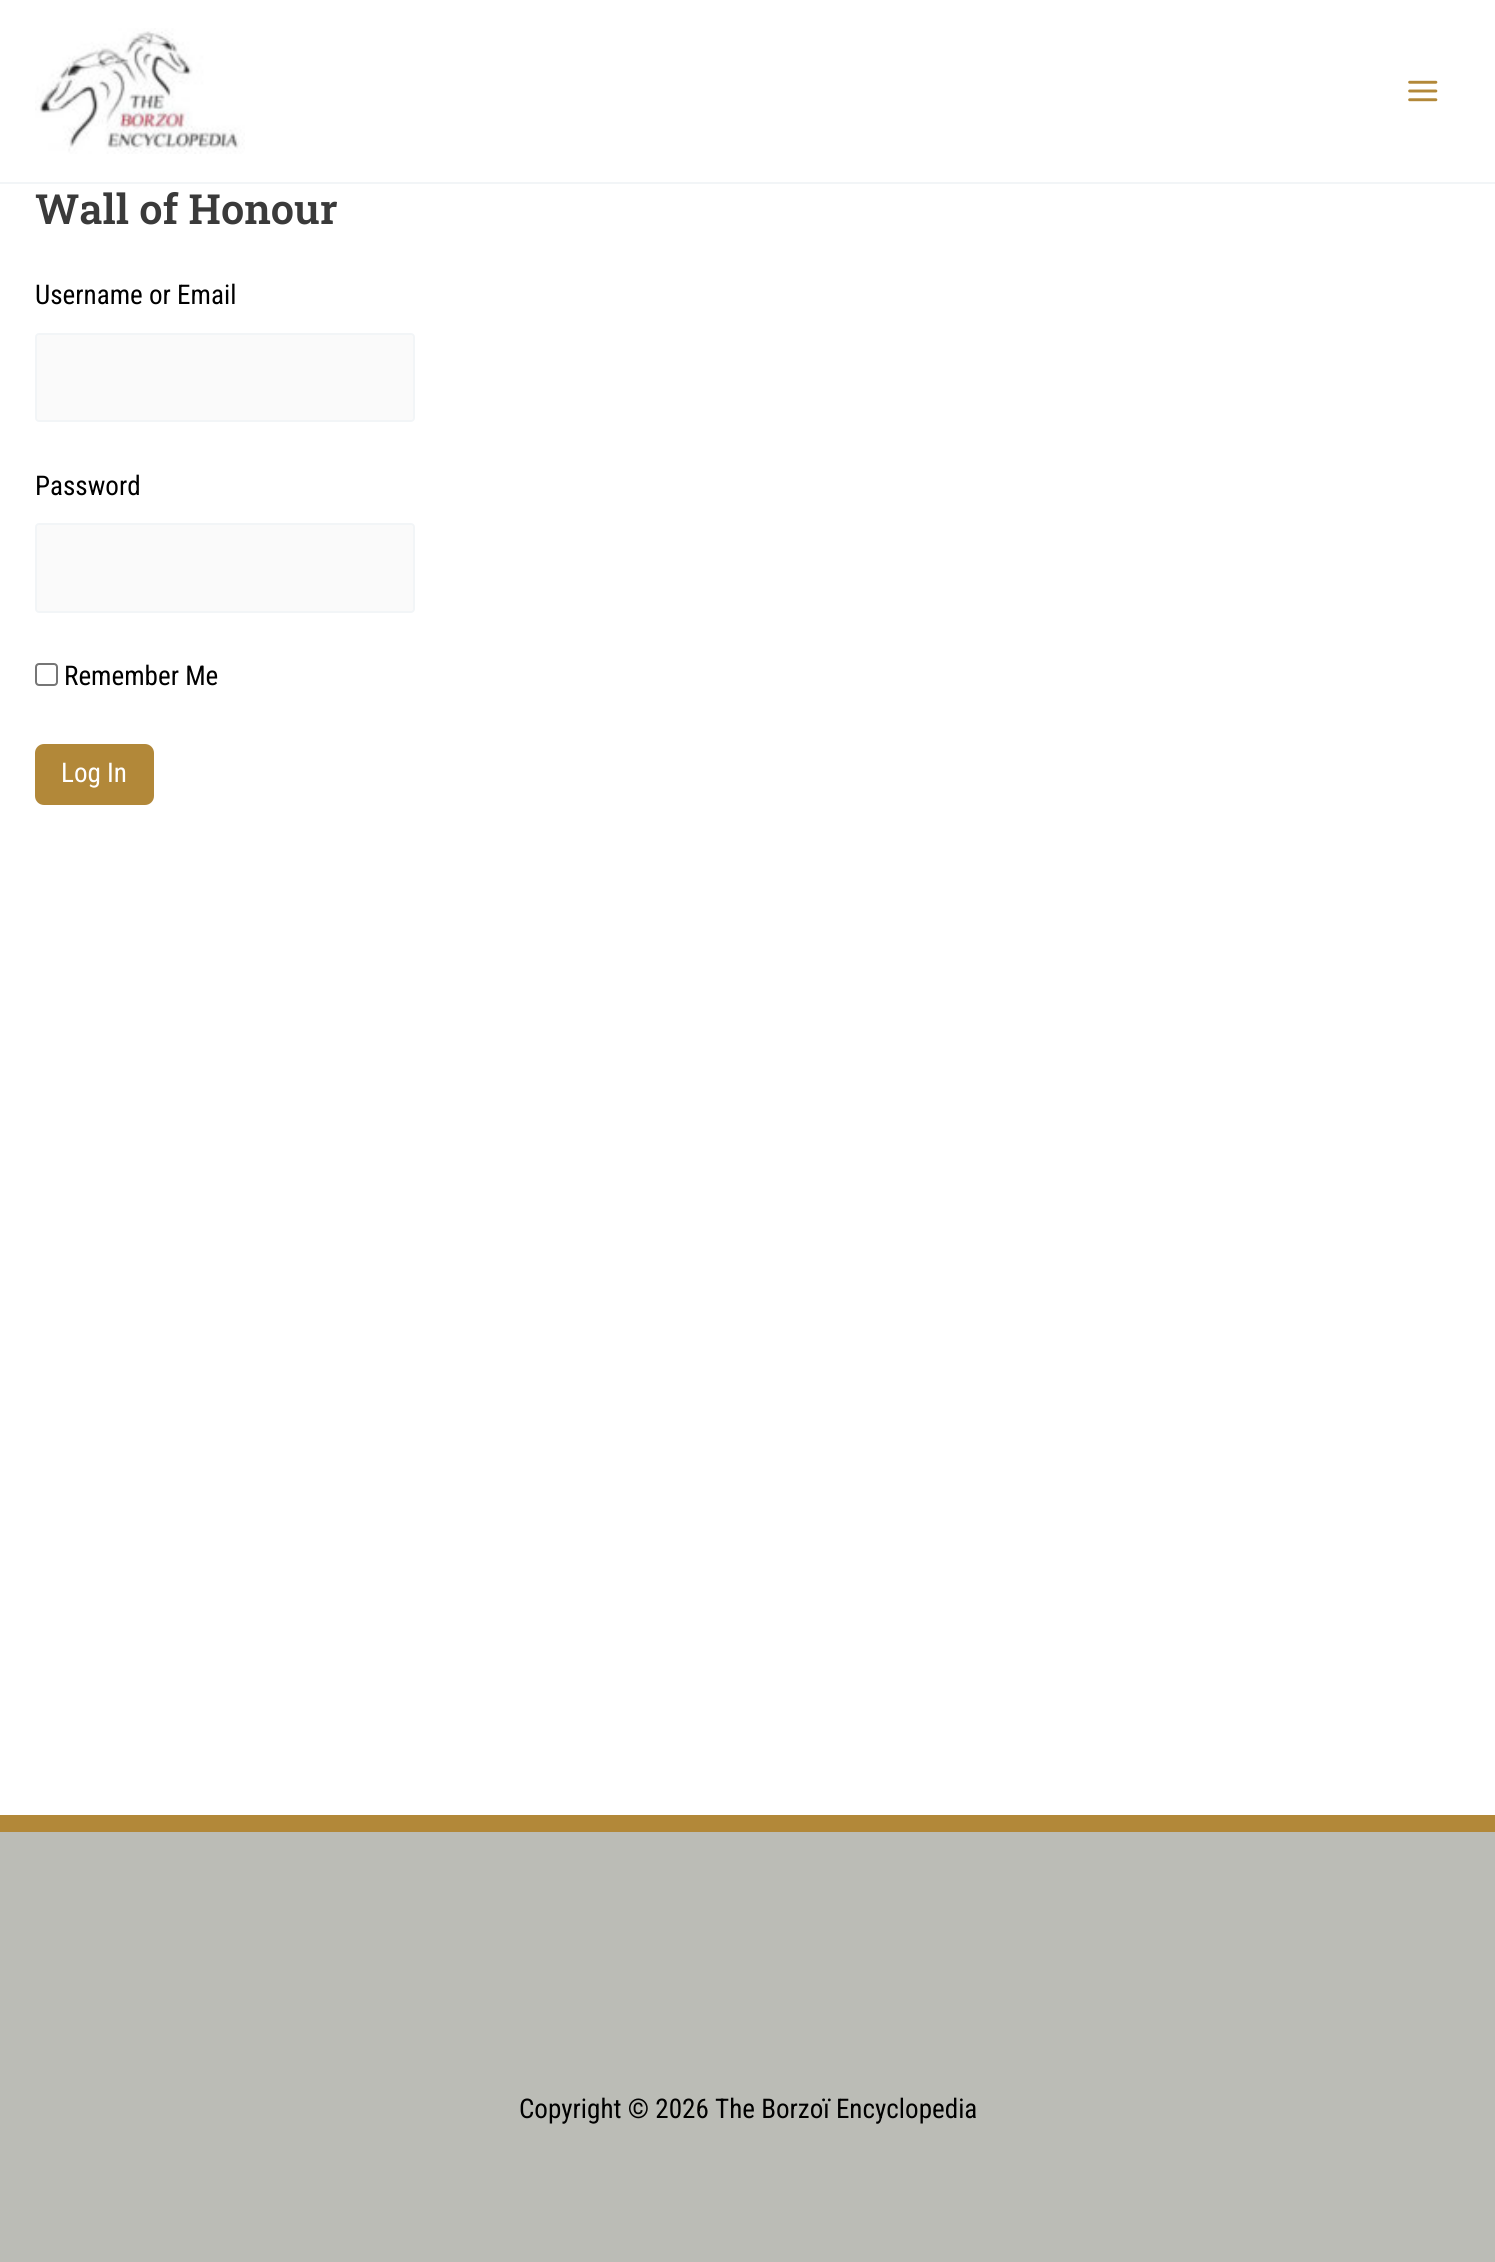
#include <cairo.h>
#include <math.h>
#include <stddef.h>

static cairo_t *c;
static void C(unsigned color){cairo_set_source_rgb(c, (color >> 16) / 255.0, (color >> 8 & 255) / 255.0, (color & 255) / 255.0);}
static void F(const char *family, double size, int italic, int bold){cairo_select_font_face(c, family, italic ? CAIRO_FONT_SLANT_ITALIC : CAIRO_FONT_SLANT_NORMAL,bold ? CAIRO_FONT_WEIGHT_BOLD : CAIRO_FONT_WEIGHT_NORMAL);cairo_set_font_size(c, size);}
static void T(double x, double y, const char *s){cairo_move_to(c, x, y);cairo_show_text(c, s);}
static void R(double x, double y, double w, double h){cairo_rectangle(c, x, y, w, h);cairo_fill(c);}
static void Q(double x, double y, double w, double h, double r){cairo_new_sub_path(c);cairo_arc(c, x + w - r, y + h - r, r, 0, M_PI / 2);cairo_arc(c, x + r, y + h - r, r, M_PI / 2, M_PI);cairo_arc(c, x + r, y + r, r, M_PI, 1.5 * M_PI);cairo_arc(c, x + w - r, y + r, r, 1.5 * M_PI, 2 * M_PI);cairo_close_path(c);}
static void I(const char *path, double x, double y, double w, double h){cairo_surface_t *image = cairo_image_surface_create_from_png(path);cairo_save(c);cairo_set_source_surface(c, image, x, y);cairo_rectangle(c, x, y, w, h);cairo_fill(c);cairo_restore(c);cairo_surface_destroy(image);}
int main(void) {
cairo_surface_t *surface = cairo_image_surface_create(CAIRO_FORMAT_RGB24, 1495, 2262);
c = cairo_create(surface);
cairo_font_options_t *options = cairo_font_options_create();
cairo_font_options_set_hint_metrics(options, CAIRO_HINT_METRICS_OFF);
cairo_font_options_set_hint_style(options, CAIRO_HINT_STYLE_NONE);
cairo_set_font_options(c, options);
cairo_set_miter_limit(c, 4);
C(0xffffff);
cairo_paint(c);
C(0xf2f5f7);
R(0,182,1495,2);
I("1.png",35,28,210,126);
I("2.png",1408,80,30,22);
F("Roboto Slab SemiBold",41.5,0,0);
C(0x3a3a3a);
T(35,224,"Wall of Honour");
F("Roboto Condensed",27.1,0,0);
C(0x000000);
T(35,304,"Username or Email");
C(0xfafafa);
Q(36,334,378,87,3);
cairo_fill_preserve(c);
C(0xf2f5f7);
cairo_stroke(c);
C(0x000000);
T(35,495,"Password");
C(0xfafafa);
Q(36,524,378,88,3);
cairo_fill_preserve(c);
C(0xf2f5f7);
cairo_stroke(c);
Q(36,664,21,21,3);
C(0x767676);
cairo_stroke(c);
C(0x000000);
T(64,685,"Remember Me");
C(0xb28839);
Q(35,744,119,61,9);
cairo_fill(c);
C(0xffffff);
T(61,782,"Log In");
C(0xbbbcb6);
R(0,1832,1495,430);
C(0xb28839);
R(0,1815,1495,17);
C(0x000000);
T(519,2118,"Copyright © 2026 The Borzoï Encyclopedia");
cairo_surface_write_to_png(surface, "o.png");
cairo_font_options_destroy(options);
cairo_destroy(c);
cairo_surface_destroy(surface);
return 0;
}
